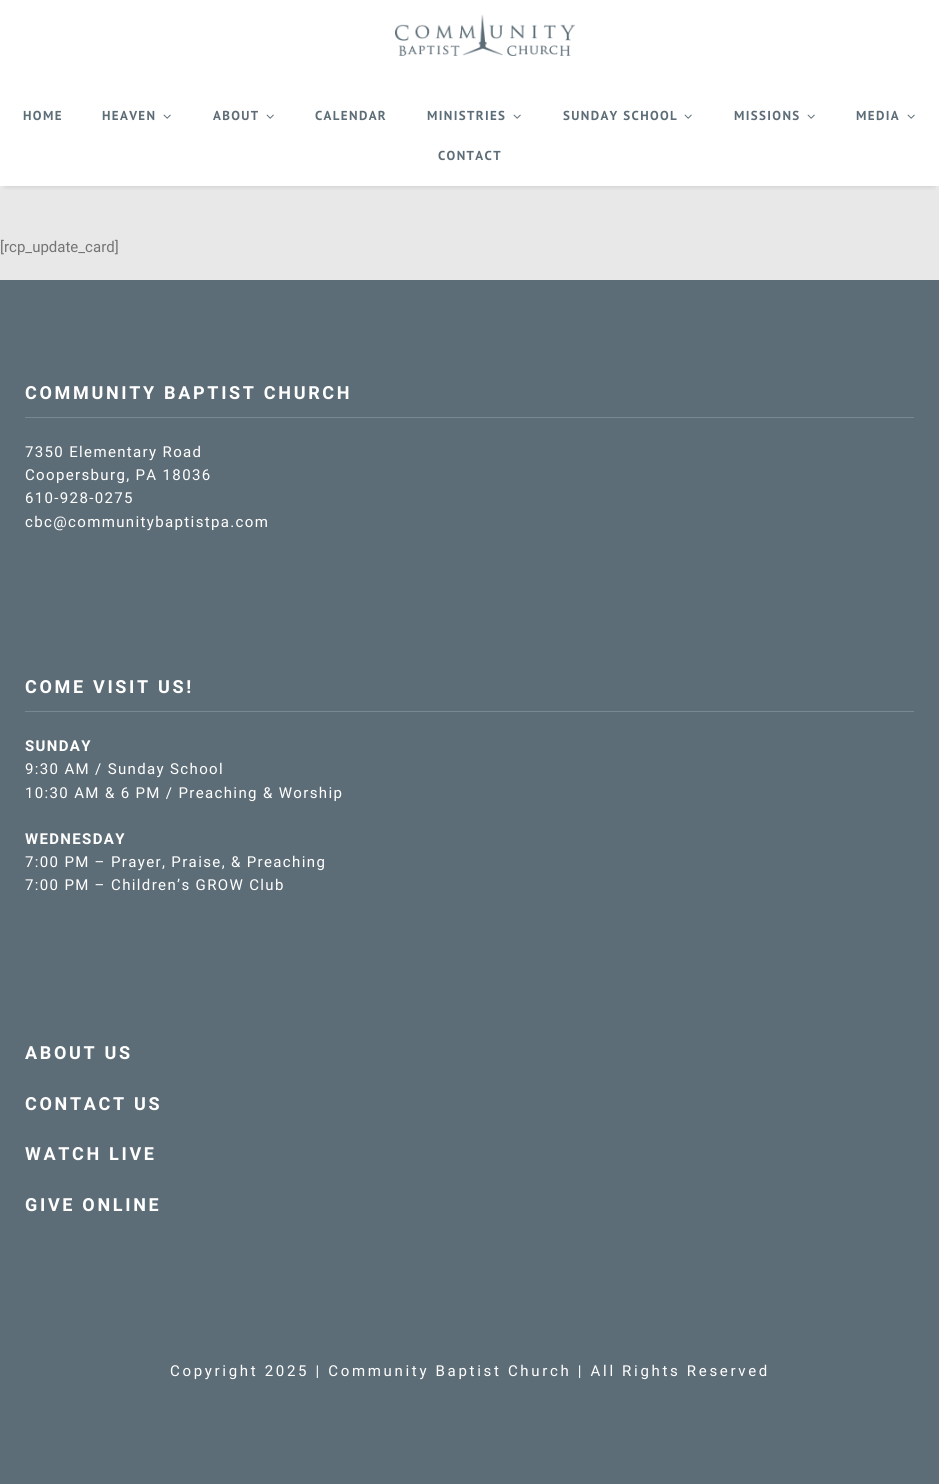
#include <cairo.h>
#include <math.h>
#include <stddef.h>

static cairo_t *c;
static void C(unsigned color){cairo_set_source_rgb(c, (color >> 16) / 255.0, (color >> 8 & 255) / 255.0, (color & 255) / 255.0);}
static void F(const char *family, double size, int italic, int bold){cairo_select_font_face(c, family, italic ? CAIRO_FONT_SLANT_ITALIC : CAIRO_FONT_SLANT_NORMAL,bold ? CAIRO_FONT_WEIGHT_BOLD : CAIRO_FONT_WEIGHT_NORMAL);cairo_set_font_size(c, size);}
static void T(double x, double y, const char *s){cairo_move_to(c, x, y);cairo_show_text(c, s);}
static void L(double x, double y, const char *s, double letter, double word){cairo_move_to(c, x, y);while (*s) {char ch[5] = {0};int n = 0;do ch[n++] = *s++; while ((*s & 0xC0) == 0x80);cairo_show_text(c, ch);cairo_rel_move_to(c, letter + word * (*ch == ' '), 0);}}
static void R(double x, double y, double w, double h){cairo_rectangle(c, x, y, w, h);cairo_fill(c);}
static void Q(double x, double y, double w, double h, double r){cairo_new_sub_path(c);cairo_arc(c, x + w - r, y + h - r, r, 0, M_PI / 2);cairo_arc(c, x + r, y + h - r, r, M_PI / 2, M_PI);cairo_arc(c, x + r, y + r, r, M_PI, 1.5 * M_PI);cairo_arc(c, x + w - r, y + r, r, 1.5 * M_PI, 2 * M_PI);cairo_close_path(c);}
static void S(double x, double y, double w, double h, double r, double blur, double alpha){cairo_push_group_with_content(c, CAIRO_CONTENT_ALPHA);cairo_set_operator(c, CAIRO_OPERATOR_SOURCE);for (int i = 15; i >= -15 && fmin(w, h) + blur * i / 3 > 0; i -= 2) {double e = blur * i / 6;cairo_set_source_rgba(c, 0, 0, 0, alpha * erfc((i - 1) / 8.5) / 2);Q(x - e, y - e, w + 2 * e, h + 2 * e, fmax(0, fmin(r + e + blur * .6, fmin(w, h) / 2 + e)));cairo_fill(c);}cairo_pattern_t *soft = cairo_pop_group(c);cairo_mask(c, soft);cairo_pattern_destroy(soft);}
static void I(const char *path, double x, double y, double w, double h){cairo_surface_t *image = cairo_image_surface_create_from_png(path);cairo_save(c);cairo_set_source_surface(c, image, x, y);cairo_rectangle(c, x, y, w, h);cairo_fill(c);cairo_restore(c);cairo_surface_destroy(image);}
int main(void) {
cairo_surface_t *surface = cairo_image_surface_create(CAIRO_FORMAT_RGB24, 939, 1484);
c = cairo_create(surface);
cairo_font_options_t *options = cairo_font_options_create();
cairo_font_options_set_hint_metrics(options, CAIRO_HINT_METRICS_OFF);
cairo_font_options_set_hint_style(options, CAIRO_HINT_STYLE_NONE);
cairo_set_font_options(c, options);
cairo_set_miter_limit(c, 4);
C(0xffffff);
cairo_paint(c);
C(0xe8e8e8);
R(0,186,939,94);
cairo_save(c);
cairo_rectangle(c,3,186,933,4);
cairo_clip(c);
C(0x000000);
S(6,7,927,174,0,5,.51);
cairo_restore(c);
I("1.png",395,15,180,41);
F("PT Sans",13,0,1);
C(0x5d6d77);
L(23,120,"HOME",1.35,0);
L(102,120,"HEAVEN",1.35,0);
I("2.png",163,114,8,5);
L(213,120,"ABOUT",1.35,0);
I("2.png",266,114,8,5);
L(315,120,"CALENDAR",1.35,0);
L(427,120,"MINISTRIES",1.35,0);
I("2.png",513,114,8,5);
L(563,120,"SUNDAY SCHOOL",1.35,0);
I("2.png",684,114,8,5);
L(734,120,"MISSIONS",1.35,0);
I("2.png",807,114,8,5);
L(856,120,"MEDIA",1.35,0);
I("2.png",907,114,8,5);
L(438,160,"CONTACT",1.35,0);
F("Heebo",15,0,0);
C(0x747474);
T(0,252,"[rcp_update_card]");
C(0x5d6d77);
R(0,280,939,1204);
C(0x768893);
R(25,417,889,1);
F("Heebo",18,0,1);
C(0xffffff);
L(25,399,"COMMUNITY BAPTIST CHURCH",2.67,0);
F("Heebo",15,0,0);
L(25,457,"7350 Elementary Road",1.35,0);
L(25,480,"Coopersburg, PA 18036",1.35,0);
L(25,503,"610-928-0275",1.35,0);
L(25,527,"cbc@communitybaptistpa.com",1.35,0);
C(0x768893);
R(25,711,889,1);
F("Heebo",18,0,1);
C(0xffffff);
L(25,693,"COME VISIT US!",2.67,0);
F("Heebo",15,0,1);
L(25,751,"SUNDAY",1.35,0);
F("Heebo",15,0,0);
L(25,774,"9:30 AM / Sunday School",1.35,0);
L(25,798,"10:30 AM & 6 PM / Preaching & Worship",1.35,0);
F("Heebo",15,0,1);
L(25,844,"WEDNESDAY",1.35,0);
F("Heebo",15,0,0);
L(25,867,"7:00 PM – Prayer, Praise, & Preaching",1.35,0);
L(25,890,"7:00 PM – Children’s GROW Club",1.35,0);
F("Heebo",18,0,1);
L(25,1059,"ABOUT US",2.67,0);
L(25,1110,"CONTACT US",2.67,0);
L(25,1160,"WATCH LIVE",2.67,0);
L(25,1211,"GIVE ONLINE",2.67,0);
F("Heebo",15,0,0);
L(170,1376,"Copyright 2025 | Community Baptist Church | All Rights Reserved",2.67,0);
cairo_surface_write_to_png(surface, "o.png");
cairo_font_options_destroy(options);
cairo_destroy(c);
cairo_surface_destroy(surface);
return 0;
}
